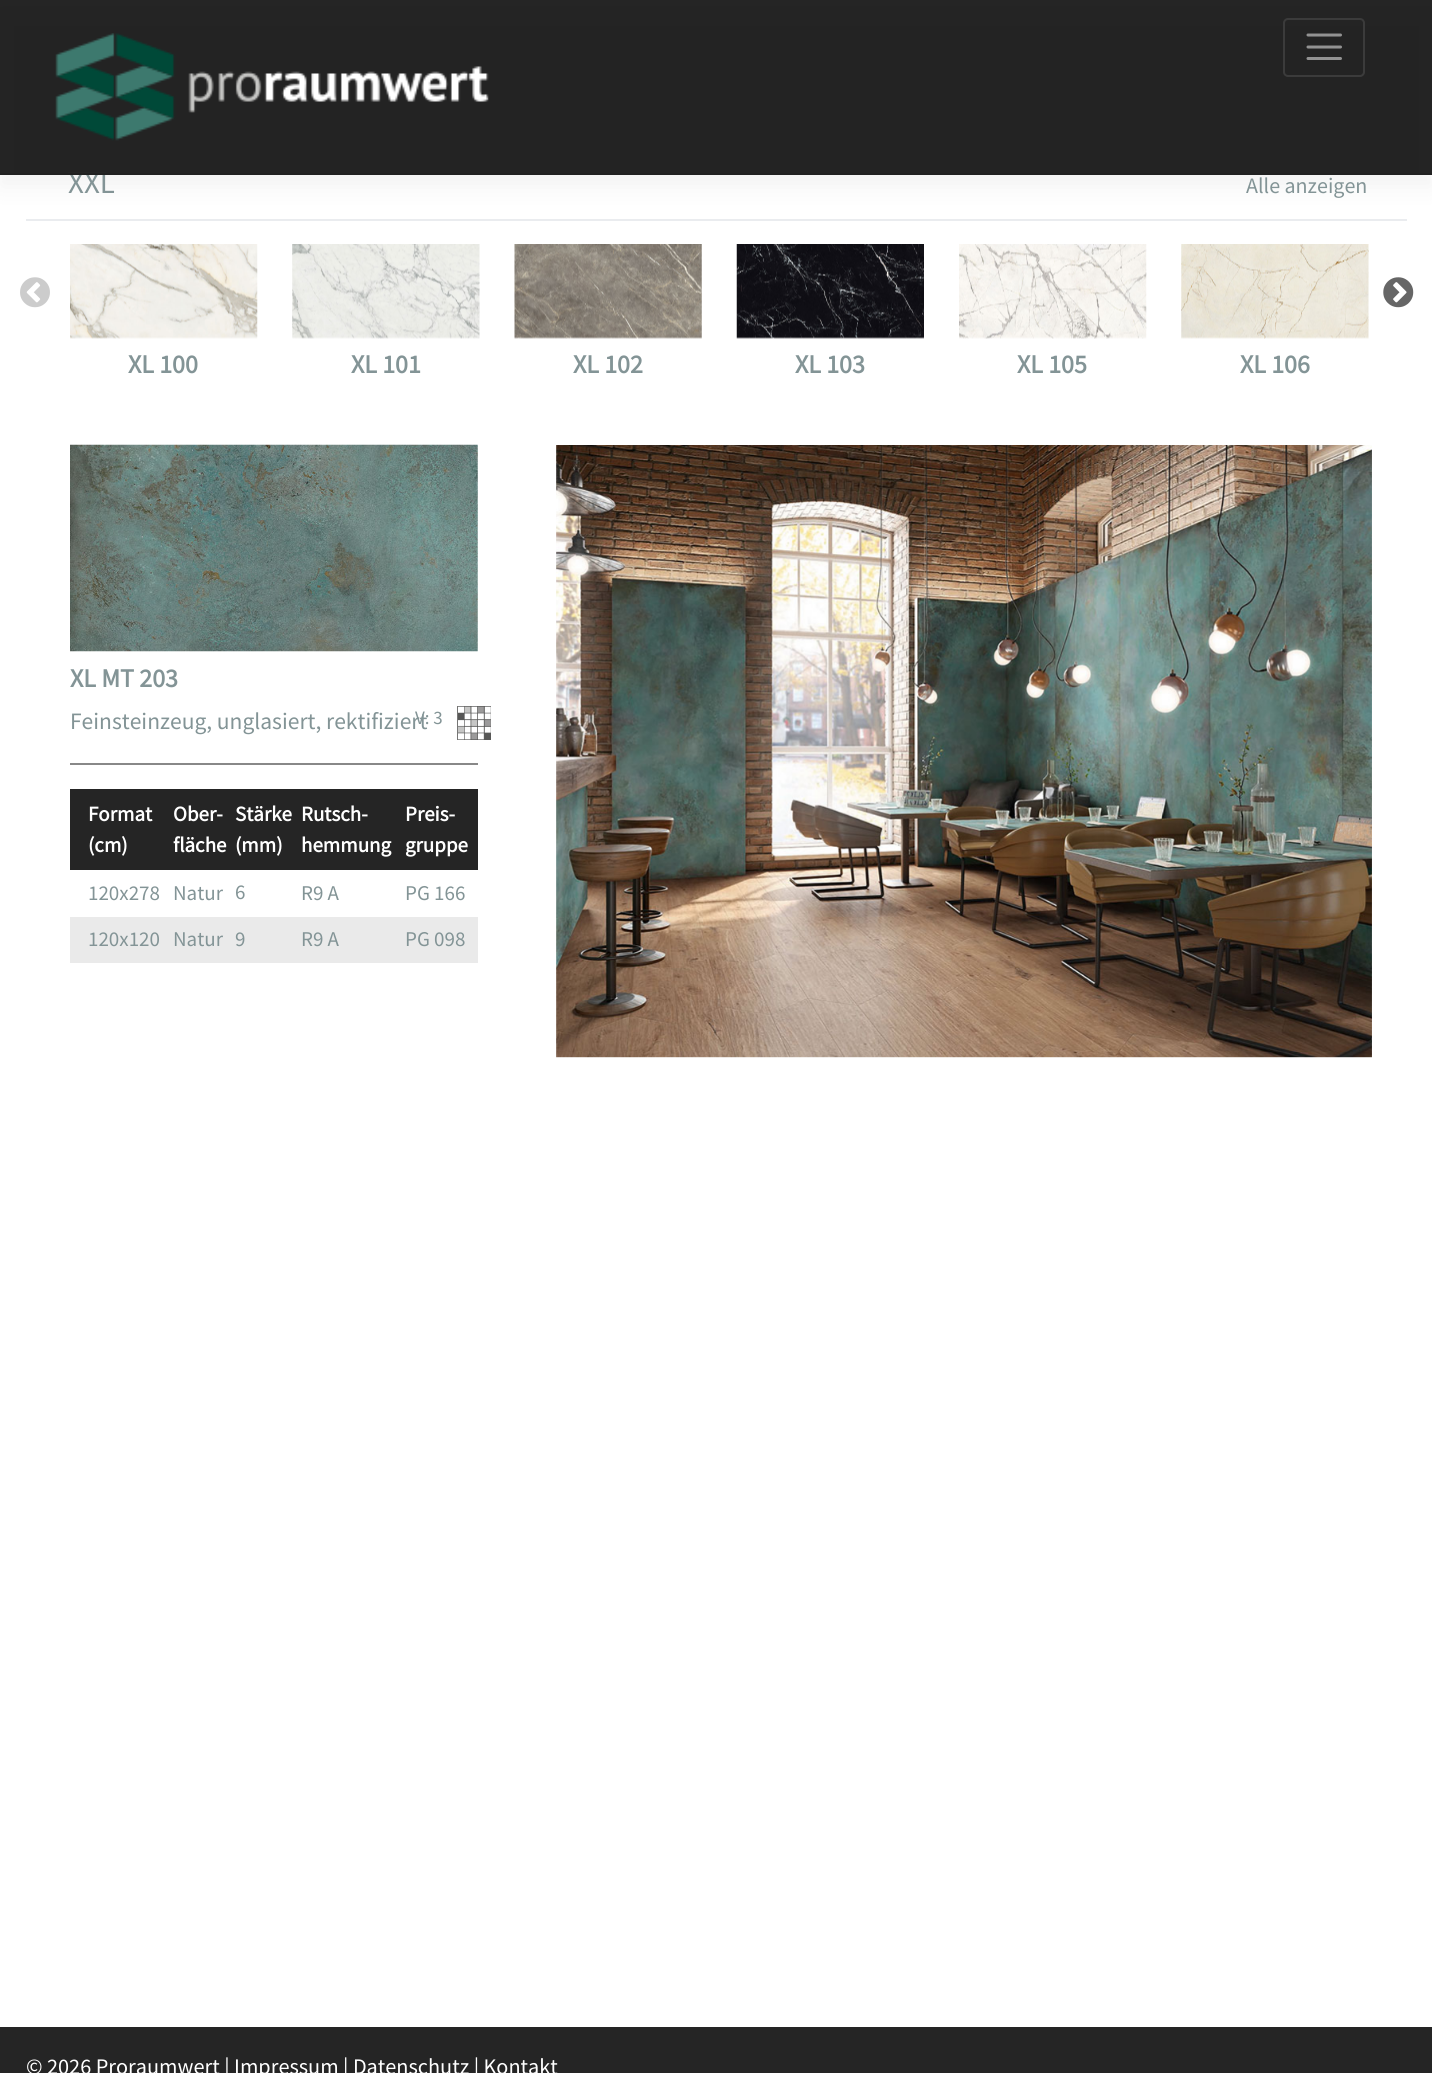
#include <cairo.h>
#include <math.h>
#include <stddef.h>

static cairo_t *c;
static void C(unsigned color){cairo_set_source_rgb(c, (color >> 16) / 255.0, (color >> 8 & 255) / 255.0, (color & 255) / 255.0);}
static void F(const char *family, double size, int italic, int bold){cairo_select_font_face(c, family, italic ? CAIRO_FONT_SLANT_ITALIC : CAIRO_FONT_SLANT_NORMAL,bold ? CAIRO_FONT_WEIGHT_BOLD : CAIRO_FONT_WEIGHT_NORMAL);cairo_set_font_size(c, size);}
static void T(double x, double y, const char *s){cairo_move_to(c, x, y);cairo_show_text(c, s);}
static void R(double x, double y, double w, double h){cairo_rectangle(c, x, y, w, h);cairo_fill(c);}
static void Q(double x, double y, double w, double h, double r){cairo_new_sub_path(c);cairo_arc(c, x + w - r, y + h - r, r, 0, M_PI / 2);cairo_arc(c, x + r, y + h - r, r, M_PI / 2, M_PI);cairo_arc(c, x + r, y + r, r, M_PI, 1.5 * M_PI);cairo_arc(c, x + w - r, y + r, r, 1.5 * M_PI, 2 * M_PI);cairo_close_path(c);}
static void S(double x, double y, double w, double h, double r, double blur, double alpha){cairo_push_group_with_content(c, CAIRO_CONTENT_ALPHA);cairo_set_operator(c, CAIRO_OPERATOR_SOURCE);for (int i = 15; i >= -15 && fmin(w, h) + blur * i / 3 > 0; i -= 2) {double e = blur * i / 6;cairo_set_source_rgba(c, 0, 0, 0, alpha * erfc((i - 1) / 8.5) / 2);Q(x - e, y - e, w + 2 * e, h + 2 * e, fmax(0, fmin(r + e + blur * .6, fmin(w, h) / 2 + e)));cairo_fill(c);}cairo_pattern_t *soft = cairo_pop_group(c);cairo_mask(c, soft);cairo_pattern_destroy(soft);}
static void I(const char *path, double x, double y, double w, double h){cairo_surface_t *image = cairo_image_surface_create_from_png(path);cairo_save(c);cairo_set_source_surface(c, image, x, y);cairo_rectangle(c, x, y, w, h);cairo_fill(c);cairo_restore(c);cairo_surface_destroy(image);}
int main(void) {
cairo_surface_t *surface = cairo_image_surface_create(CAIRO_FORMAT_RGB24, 1432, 2073);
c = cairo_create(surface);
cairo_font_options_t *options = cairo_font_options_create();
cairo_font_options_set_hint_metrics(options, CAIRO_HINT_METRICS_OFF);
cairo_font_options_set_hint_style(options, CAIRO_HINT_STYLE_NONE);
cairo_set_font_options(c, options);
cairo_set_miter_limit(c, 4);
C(0x252525);
cairo_paint(c);
C(0xffffff);
R(0,175,1432,1852);
C(0xeaecef);
R(26,219,1381,2);
C(0x000000);
S(0,12,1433,175,0,12,.05);
F("Source Sans Pro",31,0,0);
C(0x839496);
T(68,193,"XXL");
C(0x252525);
R(69,172,37,1);
C(0x212121);
R(0,173,1432,2);
I("1.png",55,33,434,108);
Q(1284,19,80,57,4);
C(0x3b3b3b);
cairo_stroke(c);
cairo_new_path(c);
cairo_move_to(c,1308,35);
cairo_line_to(c,1340.5,35);
cairo_move_to(c,1308,47);
cairo_line_to(c,1340.5,47);
cairo_move_to(c,1308,58.5);
cairo_line_to(c,1340.5,58.5);
C(0x929292);
cairo_set_line_width(c,3);
cairo_set_line_cap(c,CAIRO_LINE_CAP_ROUND);
cairo_stroke(c);
F("Source Sans Pro",22,0,0);
C(0x839496);
T(1246,193,"Alle anzeigen");
I("2.png",20,277,30,31);
I("3.png",1383,277,31,31);
I("4.png",70,244,188,95);
F("Source Sans Pro",26,0,1);
T(128,373,"XL 100");
I("5.png",292,244,188,95);
T(351,373,"XL 101");
I("6.png",514,244,188,95);
T(573,373,"XL 102");
I("7.png",736,244,188,95);
T(795,373,"XL 103");
I("8.png",959,244,188,95);
T(1017,373,"XL 105");
I("9.png",1181,244,188,95);
T(1240,373,"XL 106");
I("10.png",70,444,408,208);
T(70,687,"XL MT 203");
F("Source Sans Pro",23.5,0,0);
T(70,729,"Feinsteinzeug, unglasiert, rektifiziert");
F("Source Sans Pro",19,0,0);
T(415,724,"V: 3");
I("11.png",457,706,34,34);
C(0x888888);
R(70,763,408,2);
C(0x252525);
R(70,789,408,81);
F("Source Sans Pro",21,0,1);
C(0xffffff);
T(88,821,"Format");
T(88,852,"(cm)");
T(173,821,"Ober-");
T(173,852,"fläche");
T(235,821,"Stärke");
T(235,852,"(mm)");
T(301,821,"Rutsch-");
T(301,852,"hemmung");
T(405,821,"Preis-");
T(405,852,"gruppe");
F("Source Sans Pro",21,0,0);
C(0x839496);
T(88,900,"120x278");
T(173,900,"Natur");
T(235,899,"6");
T(301,900,"R9 A");
T(405,900,"PG 166");
C(0xeaeaea);
R(70,917,408,46);
C(0x839496);
T(88,946,"120x120");
T(173,946,"Natur");
T(235,946,"9");
T(301,946,"R9 A");
T(405,946,"PG 098");
I("12.png",556,445,816,613);
F("Source Sans Pro",22.25,0,0);
C(0xffffff);
T(26,2074,"© 2026 Proraumwert | Impressum | Datenschutz | Kontakt");
cairo_surface_write_to_png(surface, "o.png");
cairo_font_options_destroy(options);
cairo_destroy(c);
cairo_surface_destroy(surface);
return 0;
}
